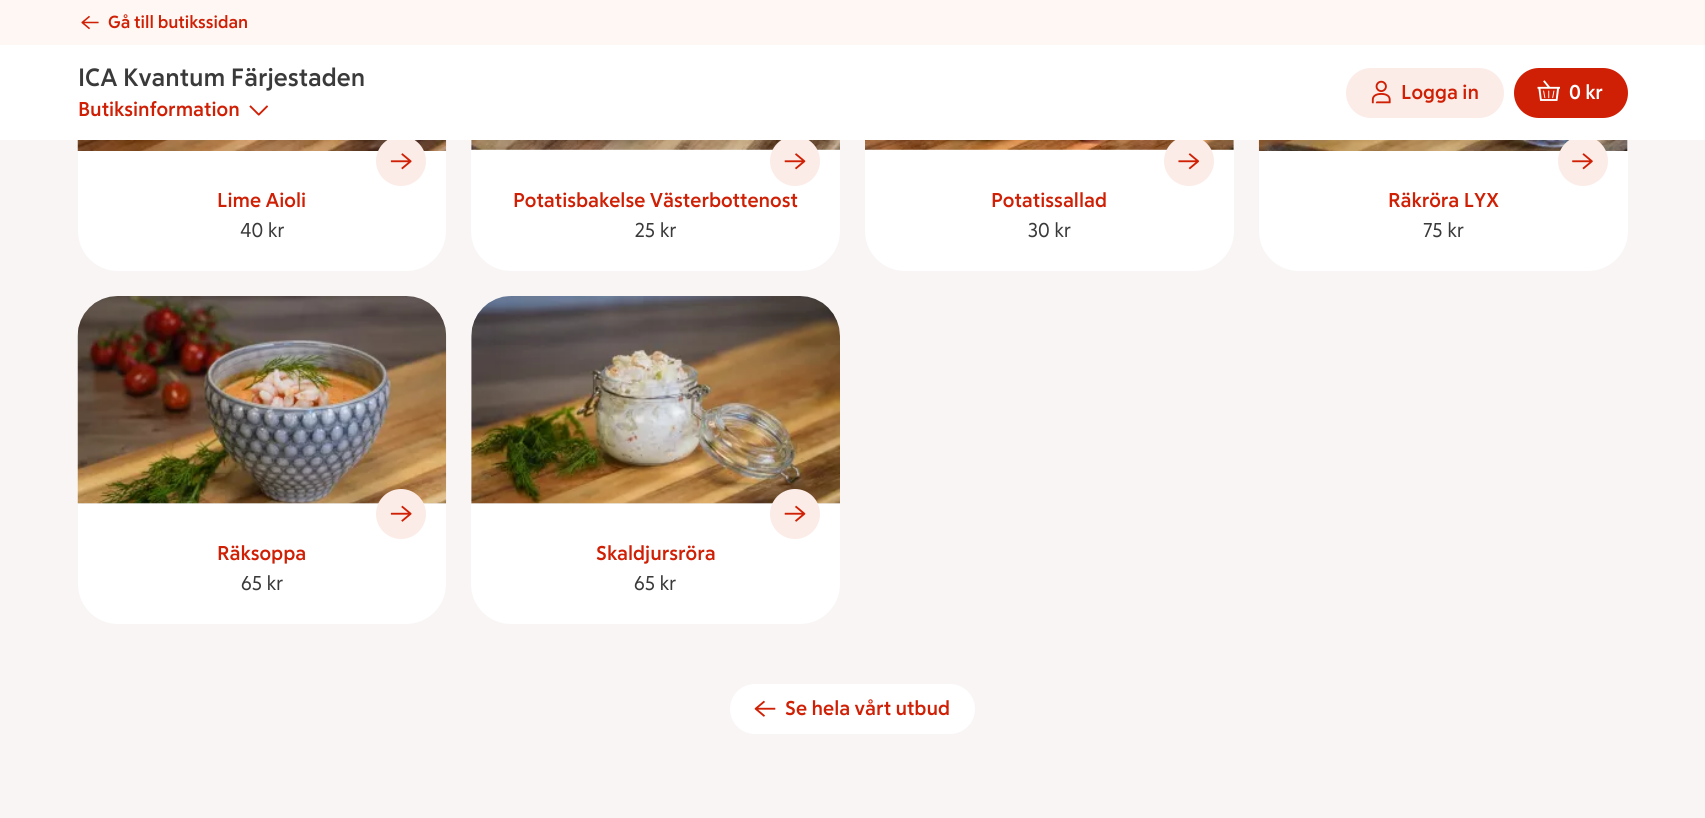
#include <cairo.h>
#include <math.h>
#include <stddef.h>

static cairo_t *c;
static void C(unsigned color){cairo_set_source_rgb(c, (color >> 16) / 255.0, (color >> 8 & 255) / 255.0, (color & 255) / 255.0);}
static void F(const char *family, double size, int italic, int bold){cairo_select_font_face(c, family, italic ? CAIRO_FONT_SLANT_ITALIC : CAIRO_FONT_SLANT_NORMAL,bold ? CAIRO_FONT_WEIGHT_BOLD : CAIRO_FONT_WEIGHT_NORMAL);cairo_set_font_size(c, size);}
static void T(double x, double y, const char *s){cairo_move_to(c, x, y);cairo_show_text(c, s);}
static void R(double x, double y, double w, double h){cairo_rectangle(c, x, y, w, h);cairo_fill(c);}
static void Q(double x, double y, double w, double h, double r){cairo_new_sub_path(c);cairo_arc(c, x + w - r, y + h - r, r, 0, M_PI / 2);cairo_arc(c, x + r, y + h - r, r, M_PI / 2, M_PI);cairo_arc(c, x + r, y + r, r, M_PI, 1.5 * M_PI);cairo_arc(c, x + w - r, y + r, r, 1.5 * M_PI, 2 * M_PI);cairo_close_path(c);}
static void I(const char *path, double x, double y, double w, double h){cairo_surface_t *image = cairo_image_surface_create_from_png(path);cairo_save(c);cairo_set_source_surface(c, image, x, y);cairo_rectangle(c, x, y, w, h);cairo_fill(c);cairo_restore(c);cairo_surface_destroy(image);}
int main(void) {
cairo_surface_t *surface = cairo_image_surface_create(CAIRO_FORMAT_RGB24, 1705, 818);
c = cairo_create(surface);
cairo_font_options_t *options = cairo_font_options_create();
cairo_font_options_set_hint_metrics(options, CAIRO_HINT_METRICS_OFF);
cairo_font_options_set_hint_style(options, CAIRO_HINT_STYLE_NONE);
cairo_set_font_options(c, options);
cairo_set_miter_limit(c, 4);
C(0xf9f5f5);
cairo_paint(c);
C(0xffffff);
Q(78,-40,368,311,40);
cairo_fill(c);
I("5.png",77,140,370,11);
C(0xfcece7);
cairo_arc(c,401,161,25,0,2 * M_PI);
cairo_fill(c);
C(0xffffff);
Q(471,-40,369,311,40);
cairo_fill(c);
C(0xededed);
R(471,140,369,10);
I("7.png",471,140,369,10);
C(0xfcece7);
cairo_arc(c,795,161,25,0,2 * M_PI);
cairo_fill(c);
C(0xffffff);
Q(865,-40,369,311,40);
cairo_fill(c);
C(0xededed);
R(865,140,369,10);
I("9.png",865,140,369,10);
C(0xfcece7);
cairo_arc(c,1189,161,25,0,2 * M_PI);
cairo_fill(c);
C(0xffffff);
Q(1259,-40,369,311,40);
cairo_fill(c);
C(0xededed);
R(1627,140,1,11);
I("11.png",1258,140,370,11);
C(0xfcece7);
cairo_arc(c,1583,161,25,0,2 * M_PI);
cairo_fill(c);
C(0xffffff);
R(0,45,1705,95);
C(0xfef7f3);
R(0,0,1705,45);
I("1.png",81,15,18,15);
F("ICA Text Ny",17.5,0,1);
C(0xcf2005);
T(108,28,"Gå till butikssidan");
F("ICA Text Ny",25,0,1);
C(0x3a3a3a);
T(78,86,"ICA Kvantum Färjestaden");
F("ICA Text Ny",20,0,1);
C(0xcf2005);
T(78,116,"Butiksinformation");
I("2.png",249,105,19,11);
C(0xfcece7);
Q(1346,68,158,50,25);
cairo_fill(c);
I("3.png",1371,80,20,24);
C(0xcf2005);
T(1401,99,"Logga in");
Q(1514,68,114,50,25);
cairo_fill(c);
I("4.png",1537,80,23,21);
C(0xffffff);
T(1569,99,"0 kr");
I("6.png",390,153,22,17);
C(0xcf2005);
T(217,207,"Lime Aioli");
F("ICA Text Ny",20,0,0);
C(0x3a3a3a);
T(240,237,"40 kr");
I("8.png",784,153,22,17);
F("ICA Text Ny",20,0,1);
C(0xcf2005);
T(513,207,"Potatisbakelse Västerbottenost");
F("ICA Text Ny",20,0,0);
C(0x3a3a3a);
T(635,237,"25 kr");
I("10.png",1178,153,21,17);
F("ICA Text Ny",20,0,1);
C(0xcf2005);
T(991,207,"Potatissallad");
F("ICA Text Ny",20,0,0);
C(0x3a3a3a);
T(1028,237,"30 kr");
I("12.png",1572,153,21,17);
F("ICA Text Ny",20,0,1);
C(0xcf2005);
T(1388,207,"Räkröra LYX");
F("ICA Text Ny",20,0,0);
C(0x3a3a3a);
T(1423,237,"75 kr");
C(0xffffff);
Q(78,296,368,328,40);
cairo_fill(c);
C(0xededed);
cairo_new_path(c);
cairo_move_to(c,118,296);
cairo_line_to(c,406,296);
cairo_curve_to(c,428,296,446,314,446,336);
cairo_line_to(c,446,504);
cairo_line_to(c,78,504);
cairo_line_to(c,78,336);
cairo_curve_to(c,78,314,96,296,118,296);
cairo_close_path(c);
cairo_fill(c);
I("13.png",77,296,370,208);
C(0xfcece7);
cairo_arc(c,401,514,25,0,2 * M_PI);
cairo_fill(c);
I("14.png",390,505,22,17);
F("ICA Text Ny",20,0,1);
C(0xcf2005);
T(217,560,"Räksoppa");
F("ICA Text Ny",20,0,0);
C(0x3a3a3a);
T(241,590,"65 kr");
C(0xffffff);
Q(471,296,369,328,40);
cairo_fill(c);
C(0xededed);
cairo_new_path(c);
cairo_move_to(c,511,296);
cairo_line_to(c,800,296);
cairo_curve_to(c,822,296,840,314,840,336);
cairo_line_to(c,840,504);
cairo_line_to(c,471,504);
cairo_line_to(c,471,336);
cairo_curve_to(c,471,314,489,296,511,296);
cairo_close_path(c);
cairo_fill(c);
I("15.png",471,296,369,208);
C(0xfcece7);
cairo_arc(c,795,514,25,0,2 * M_PI);
cairo_fill(c);
I("16.png",784,505,22,17);
F("ICA Text Ny",20,0,1);
C(0xcf2005);
T(596,560,"Skaldjursröra");
F("ICA Text Ny",20,0,0);
C(0x3a3a3a);
T(634,590,"65 kr");
C(0xffffff);
Q(730,684,245,50,25);
cairo_fill(c);
I("17.png",754,700,22,17);
F("ICA Text Ny",20,0,1);
C(0xcf2005);
T(785,715,"Se hela vårt utbud");
cairo_surface_write_to_png(surface, "o.png");
cairo_font_options_destroy(options);
cairo_destroy(c);
cairo_surface_destroy(surface);
return 0;
}
